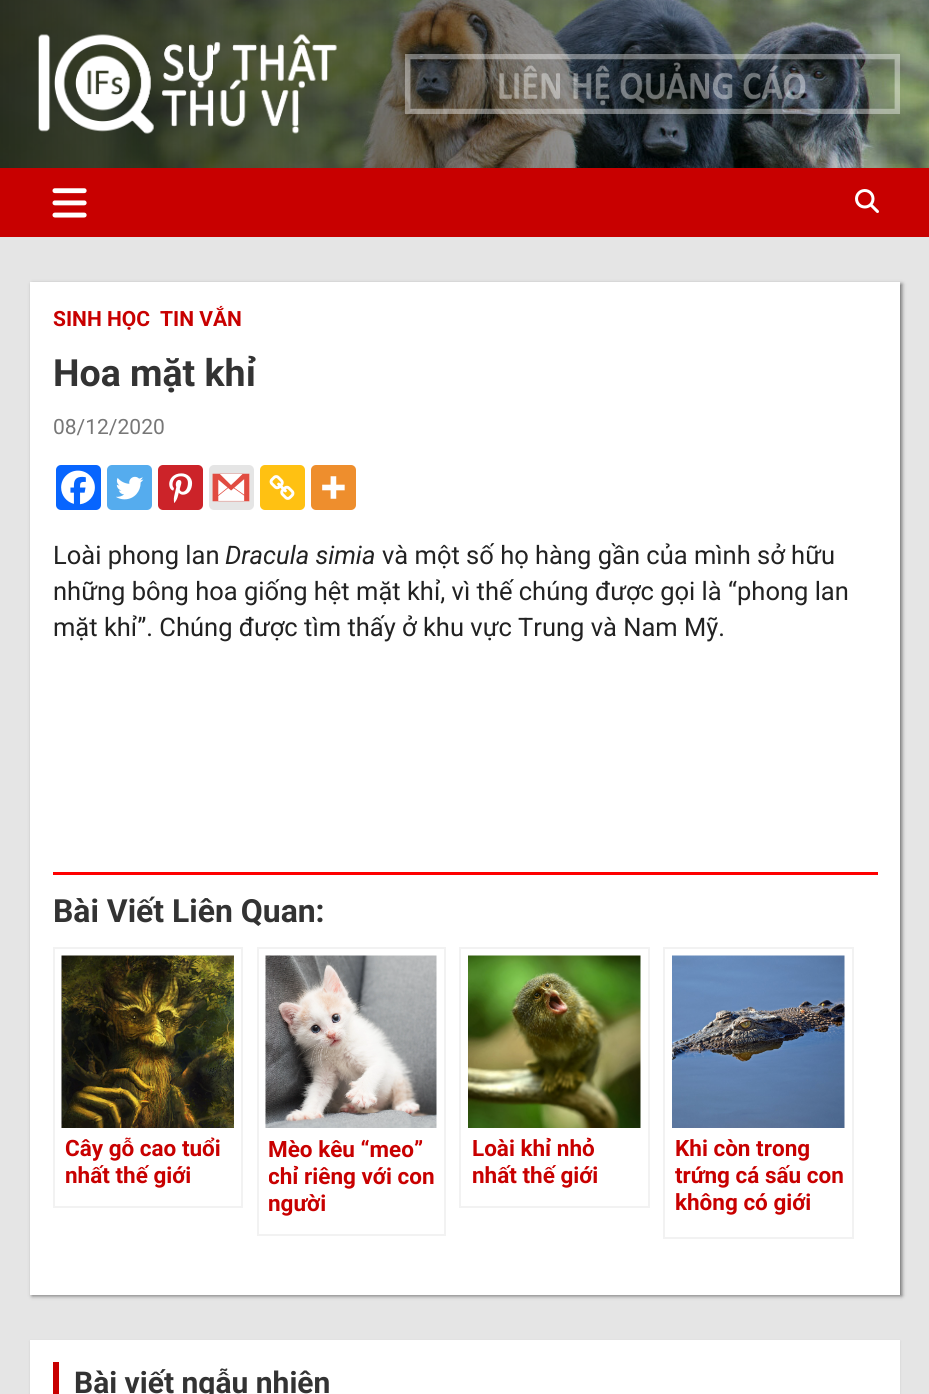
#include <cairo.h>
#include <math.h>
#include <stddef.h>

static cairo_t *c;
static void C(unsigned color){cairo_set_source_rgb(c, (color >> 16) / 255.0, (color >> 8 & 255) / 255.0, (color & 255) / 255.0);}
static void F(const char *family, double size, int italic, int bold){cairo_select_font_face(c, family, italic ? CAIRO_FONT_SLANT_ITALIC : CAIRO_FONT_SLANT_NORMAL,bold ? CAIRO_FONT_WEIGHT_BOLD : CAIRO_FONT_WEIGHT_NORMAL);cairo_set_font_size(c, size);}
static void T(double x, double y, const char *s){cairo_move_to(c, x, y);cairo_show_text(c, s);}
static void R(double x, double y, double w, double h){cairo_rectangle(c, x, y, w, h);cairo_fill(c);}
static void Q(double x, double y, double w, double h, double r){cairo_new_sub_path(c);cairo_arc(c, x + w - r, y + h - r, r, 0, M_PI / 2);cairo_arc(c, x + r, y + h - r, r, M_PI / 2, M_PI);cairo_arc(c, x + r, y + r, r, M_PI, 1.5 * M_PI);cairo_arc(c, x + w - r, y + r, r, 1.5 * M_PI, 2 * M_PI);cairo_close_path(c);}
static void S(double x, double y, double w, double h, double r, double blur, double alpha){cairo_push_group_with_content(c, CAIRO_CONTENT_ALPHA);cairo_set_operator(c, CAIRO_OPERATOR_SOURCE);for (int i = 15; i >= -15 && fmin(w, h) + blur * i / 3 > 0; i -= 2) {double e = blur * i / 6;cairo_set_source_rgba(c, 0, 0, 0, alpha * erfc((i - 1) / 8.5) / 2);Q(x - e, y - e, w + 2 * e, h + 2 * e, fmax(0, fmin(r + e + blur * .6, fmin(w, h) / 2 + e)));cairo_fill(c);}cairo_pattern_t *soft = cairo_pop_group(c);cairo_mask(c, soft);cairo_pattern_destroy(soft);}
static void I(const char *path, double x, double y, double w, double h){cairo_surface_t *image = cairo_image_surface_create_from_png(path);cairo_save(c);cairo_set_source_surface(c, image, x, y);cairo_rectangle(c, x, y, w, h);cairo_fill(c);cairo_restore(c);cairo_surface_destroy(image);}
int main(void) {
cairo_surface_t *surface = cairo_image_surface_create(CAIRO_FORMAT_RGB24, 929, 1394);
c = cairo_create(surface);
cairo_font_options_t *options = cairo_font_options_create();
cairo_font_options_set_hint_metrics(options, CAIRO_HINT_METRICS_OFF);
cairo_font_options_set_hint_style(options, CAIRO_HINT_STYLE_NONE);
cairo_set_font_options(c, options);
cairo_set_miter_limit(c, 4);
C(0xe5e5e5);
cairo_paint(c);
I("1.png",0,0,929,168);
I("2.png",38,34,299,100);
I("3.png",405,54,495,60);
C(0xc80000);
R(0,168,929,69);
I("4.png",52,188,35,30);
I("5.png",855,189,24,24);
C(0x000000);
S(32,284,870,1012,0,2,.5);
C(0xffffff);
R(30,282,870,1013);
F("Roboto",21,0,1);
C(0xc80000);
T(53,326,"SINH HỌC");
T(160,326,"TIN VẮN");
F("Roboto",37.5,0,1);
C(0x333333);
T(53,386,"Hoa mặt khỉ");
F("Roboto",21,0,0);
C(0x777777);
T(53,434,"08/12/2020");
C(0x0765fe);
Q(56,465,45,45,5);
cairo_fill(c);
I("6.png",61,470,34,35);
C(0x55acee);
Q(107,465,45,45,5);
cairo_fill(c);
I("7.png",116,476,28,24);
C(0xcc2329);
Q(158,465,45,45,5);
cairo_fill(c);
I("8.png",169,473,24,30);
C(0xe5e5e5);
Q(209,465,45,45,5);
cairo_fill(c);
I("9.png",212,473,38,29);
C(0xffc112);
Q(260,465,45,45,5);
cairo_fill(c);
I("10.png",269,475,26,25);
C(0xee8e2d);
Q(311,465,45,45,5);
cairo_fill(c);
I("11.png",322,476,23,23);
F("Roboto",25.5,0,0);
C(0x222222);
T(53,564,"Loài phong lan");
F("Roboto",25.5,1,0);
T(225,564,"Dracula simia");
F("Roboto",25.5,0,0);
T(382,564,"và một số họ hàng gần của mình sở hữu");
T(53,600,"những bông hoa giống hệt mặt khỉ, vì thế chúng được gọi là “phong lan");
T(53,636,"mặt khỉ”. Chúng được tìm thấy ở khu vực Trung và Nam Mỹ.");
C(0xff0000);
R(53,872,825,3);
F("Roboto",31.9,0,1);
C(0x333333);
T(53,922,"Bài Viết Liên Quan:");
cairo_rectangle(c,54,948,188,259);
C(0xf2f2f2);
cairo_stroke(c);
I("12.png",61,955,173,173);
F("Roboto",22.5,0,1);
C(0xc80000);
T(65,1156,"Cây gỗ cao tuổi");
T(65,1183,"nhất thế giới");
cairo_rectangle(c,258,948,187,287);
C(0xf2f2f2);
cairo_stroke(c);
I("13.png",265,955,172,173);
C(0xc80000);
T(268,1157,"Mèo kêu “meo”");
cairo_save(c);
cairo_rectangle(c,269,1136,171,81);
cairo_clip(c);
T(268,1184,"chỉ riêng với con");
cairo_restore(c);
T(268,1211,"người");
cairo_rectangle(c,460,948,189,259);
C(0xf2f2f2);
cairo_stroke(c);
I("14.png",468,955,173,173);
C(0xc80000);
T(472,1156,"Loài khỉ nhỏ");
T(472,1183,"nhất thế giới");
cairo_rectangle(c,664,948,189,290);
C(0xf2f2f2);
cairo_stroke(c);
I("15.png",672,955,173,173);
C(0xc80000);
T(675,1156,"Khi còn trong");
T(675,1183,"trứng cá sấu con");
T(675,1210,"không có giới");
C(0x000000);
S(30,1341,870,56,0,1,.1);
C(0xffffff);
R(30,1340,870,54);
C(0xc80000);
R(53,1362,6,32);
F("Roboto",30,0,1);
C(0x333333);
T(74,1393,"Bài viết ngẫu nhiên");
cairo_surface_write_to_png(surface, "o.png");
cairo_font_options_destroy(options);
cairo_destroy(c);
cairo_surface_destroy(surface);
return 0;
}
